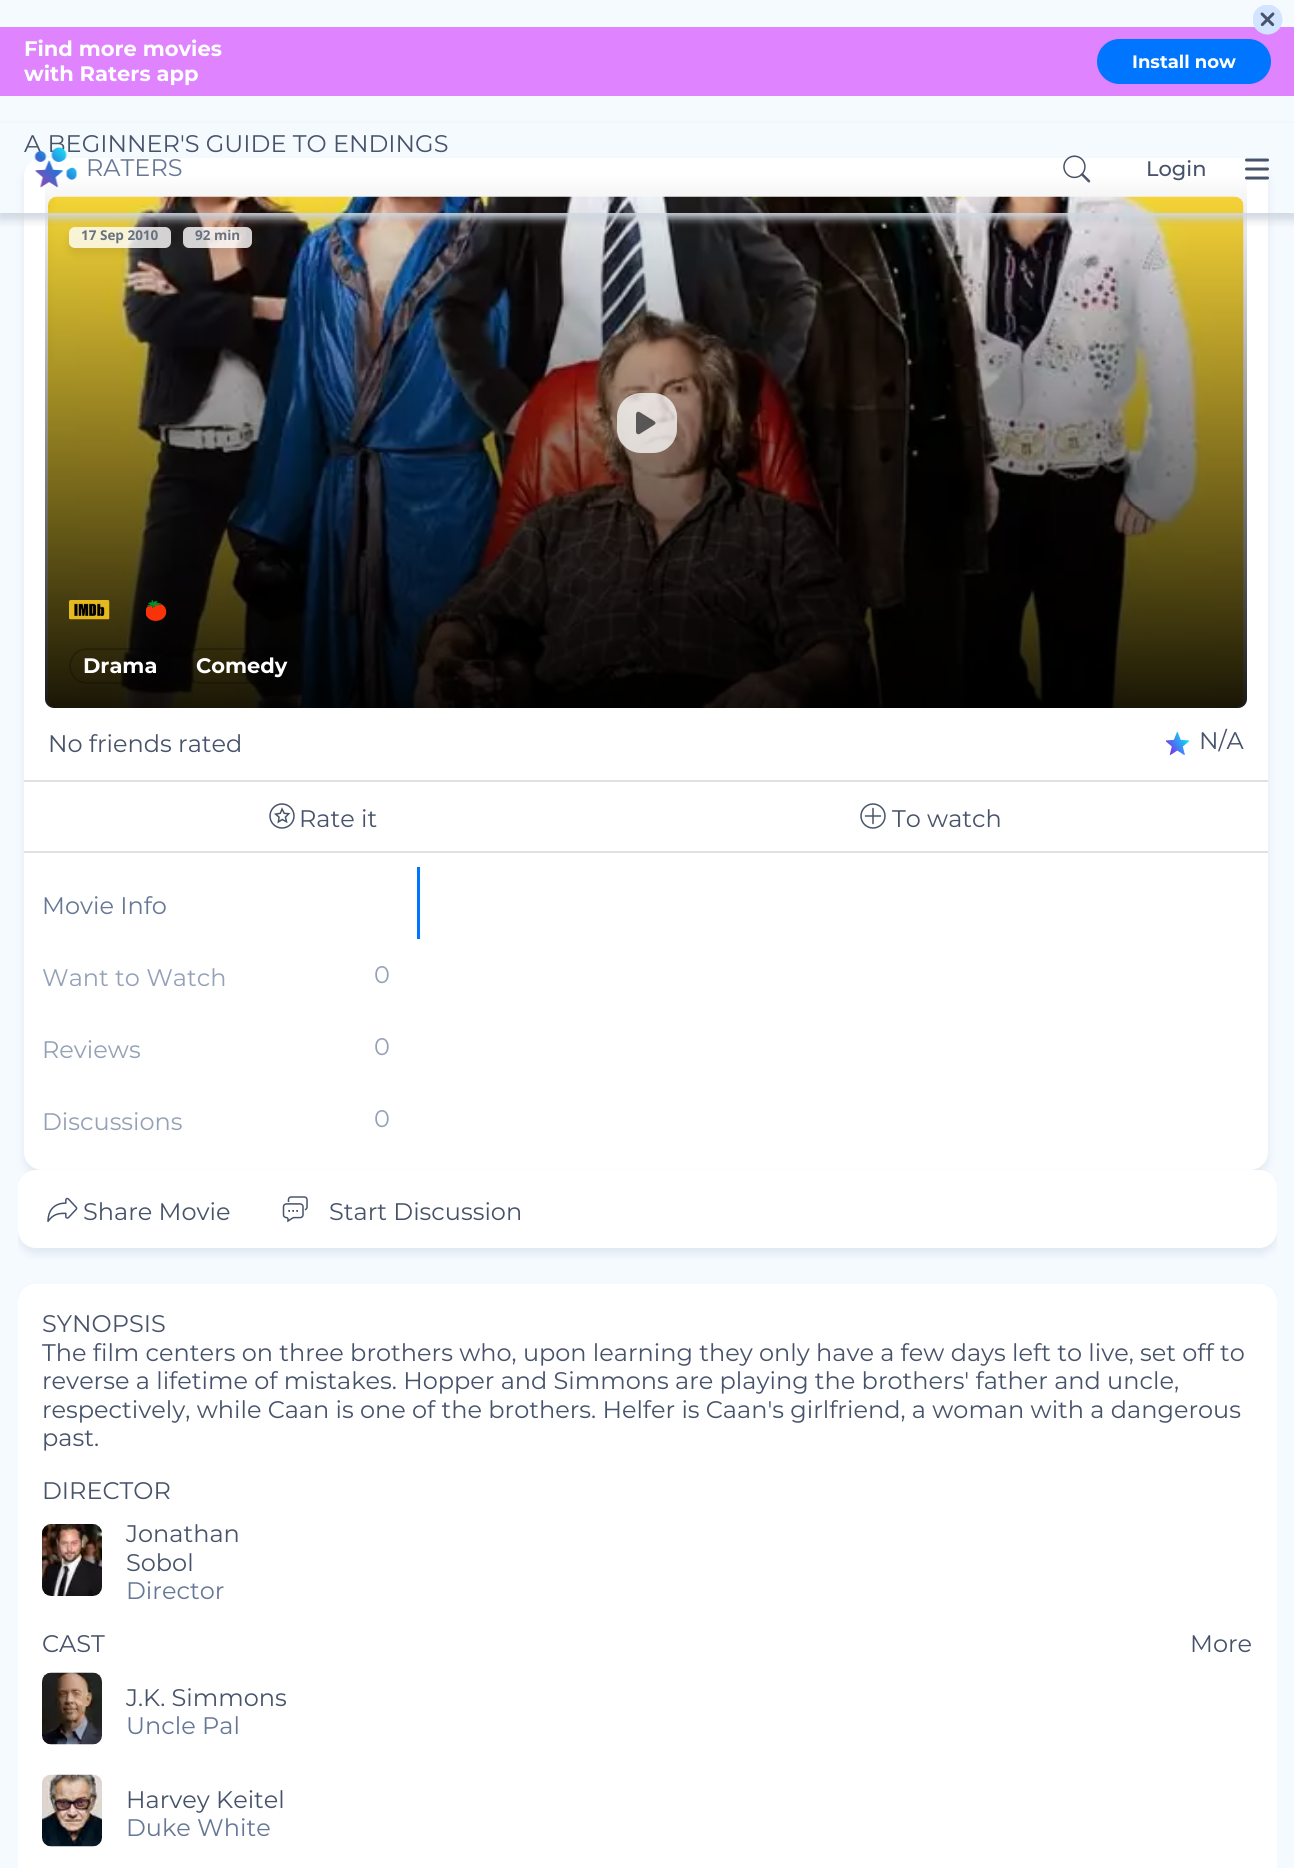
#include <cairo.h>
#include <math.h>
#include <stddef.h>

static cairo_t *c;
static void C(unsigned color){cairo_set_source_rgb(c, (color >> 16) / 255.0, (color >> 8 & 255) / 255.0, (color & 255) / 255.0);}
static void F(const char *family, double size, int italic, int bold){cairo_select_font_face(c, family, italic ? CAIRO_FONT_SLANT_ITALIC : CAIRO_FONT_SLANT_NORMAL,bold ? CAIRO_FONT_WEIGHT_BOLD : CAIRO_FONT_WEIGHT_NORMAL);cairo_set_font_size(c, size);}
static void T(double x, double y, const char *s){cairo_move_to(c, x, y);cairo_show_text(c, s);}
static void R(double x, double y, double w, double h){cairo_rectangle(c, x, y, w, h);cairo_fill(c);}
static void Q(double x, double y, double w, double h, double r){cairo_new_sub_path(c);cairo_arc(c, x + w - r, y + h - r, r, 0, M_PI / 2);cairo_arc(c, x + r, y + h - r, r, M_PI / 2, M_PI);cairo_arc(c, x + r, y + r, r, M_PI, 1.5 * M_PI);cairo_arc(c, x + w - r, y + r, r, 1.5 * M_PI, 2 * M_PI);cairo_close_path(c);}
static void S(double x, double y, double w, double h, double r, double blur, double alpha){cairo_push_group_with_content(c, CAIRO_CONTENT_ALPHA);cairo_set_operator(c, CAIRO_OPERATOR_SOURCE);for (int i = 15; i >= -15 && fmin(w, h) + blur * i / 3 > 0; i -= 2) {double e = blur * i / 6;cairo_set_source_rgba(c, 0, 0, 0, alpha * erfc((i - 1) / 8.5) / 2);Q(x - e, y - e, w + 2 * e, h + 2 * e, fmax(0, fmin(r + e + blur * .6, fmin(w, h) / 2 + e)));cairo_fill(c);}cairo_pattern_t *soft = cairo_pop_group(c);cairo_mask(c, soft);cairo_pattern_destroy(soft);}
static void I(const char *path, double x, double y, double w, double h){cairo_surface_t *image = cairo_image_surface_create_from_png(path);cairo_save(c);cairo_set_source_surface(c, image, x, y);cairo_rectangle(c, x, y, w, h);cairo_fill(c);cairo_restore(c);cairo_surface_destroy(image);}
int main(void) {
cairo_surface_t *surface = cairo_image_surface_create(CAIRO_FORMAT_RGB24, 1294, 1868);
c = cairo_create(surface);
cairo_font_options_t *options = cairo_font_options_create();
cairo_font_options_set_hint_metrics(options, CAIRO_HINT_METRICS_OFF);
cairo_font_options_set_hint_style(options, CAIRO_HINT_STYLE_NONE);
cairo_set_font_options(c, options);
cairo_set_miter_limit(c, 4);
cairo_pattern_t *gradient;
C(0xf5faff);
cairo_paint(c);
C(0x1c4368);
S(24,164,1244,1012,18,4.5,.1);
C(0xffffff);
Q(24,158,1244,1012,18);
cairo_fill(c);
I("4.png",48,196,1196,512);
gradient = cairo_pattern_create_linear(646,174,646,708);
cairo_pattern_add_color_stop_rgba(gradient,0,0,0,0,0);
cairo_pattern_add_color_stop_rgba(gradient,1,0,0,0,.9);
cairo_set_source(c,gradient);
cairo_pattern_destroy(gradient);
Q(45,174,1202,534,9);
cairo_fill(c);
cairo_save(c);
cairo_set_fill_rule(c,CAIRO_FILL_RULE_EVEN_ODD);
cairo_new_path(c);
cairo_move_to(c,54,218);
cairo_line_to(c,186,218);
cairo_line_to(c,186,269);
cairo_line_to(c,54,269);
cairo_close_path(c);
cairo_move_to(c,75,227);
cairo_line_to(c,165,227);
cairo_curve_to(c,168.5,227,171,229.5,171,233);
cairo_line_to(c,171,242);
cairo_curve_to(c,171,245.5,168.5,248,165,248);
cairo_line_to(c,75,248);
cairo_curve_to(c,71.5,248,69,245.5,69,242);
cairo_line_to(c,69,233);
cairo_curve_to(c,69,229.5,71.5,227,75,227);
cairo_close_path(c);
cairo_clip(c);
C(0x000000);
S(69,233,102,21,6,4.5,.08);
cairo_restore(c);
cairo_set_source_rgba(c,1,1,1,0.8);
Q(69,227,102,21,6);
cairo_fill(c);
cairo_save(c);
cairo_set_fill_rule(c,CAIRO_FILL_RULE_EVEN_ODD);
cairo_new_path(c);
cairo_move_to(c,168,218);
cairo_line_to(c,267,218);
cairo_line_to(c,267,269);
cairo_line_to(c,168,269);
cairo_close_path(c);
cairo_move_to(c,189,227);
cairo_line_to(c,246,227);
cairo_curve_to(c,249.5,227,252,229.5,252,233);
cairo_line_to(c,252,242);
cairo_curve_to(c,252,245.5,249.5,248,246,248);
cairo_line_to(c,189,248);
cairo_curve_to(c,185.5,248,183,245.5,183,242);
cairo_line_to(c,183,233);
cairo_curve_to(c,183,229.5,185.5,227,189,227);
cairo_close_path(c);
cairo_clip(c);
C(0x000000);
S(183,233,69,21,6,4.5,.08);
cairo_restore(c);
Q(183,227,69,21,6);
cairo_fill(c);
cairo_save(c);
cairo_rectangle(c,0,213,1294,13);
cairo_clip(c);
C(0x47536a);
S(0,6,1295,213,0,6,.15);
cairo_restore(c);
C(0xdf83ff);
R(0,27,1294,69);
I("1.png",1253,5,30,30);
F("Montserrat",21,0,1);
C(0xffffff);
T(24,56,"Find more movies");
T(24,81,"with Raters app");
C(0x0075ff);
Q(1097,39,174,45,22.5);
cairo_fill(c);
F("Montserrat",18,0,1);
C(0xffffff);
T(1132,68,"Install now");
cairo_save(c);
cairo_set_fill_rule(c,CAIRO_FILL_RULE_EVEN_ODD);
cairo_new_path(c);
cairo_move_to(c,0,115);
cairo_line_to(c,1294,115);
cairo_line_to(c,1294,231);
cairo_line_to(c,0,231);
cairo_close_path(c);
cairo_move_to(c,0,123);
cairo_line_to(c,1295,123);
cairo_line_to(c,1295,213);
cairo_line_to(c,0,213);
cairo_close_path(c);
cairo_clip(c);
C(0xd2d9e1);
S(0,128,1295,90,0,4,1);
cairo_restore(c);
F("Montserrat",24,0,0);
C(0x47536a);
T(24,152,"A BEGINNER'S GUIDE TO ENDINGS");
I("2.png",34,147,43,41);
C(0x677897);
T(86,176,"RATERS");
I("3.png",1063,155,28,28);
F("Montserrat Medium",21,0,0);
C(0x47536a);
T(1146,176,"Login");
cairo_new_path(c);
cairo_move_to(c,1246.5,160);
cairo_line_to(c,1267.5,160);
cairo_move_to(c,1246.5,169);
cairo_line_to(c,1267.5,169);
cairo_move_to(c,1246.5,178);
cairo_line_to(c,1267.5,178);
cairo_set_line_width(c,3);
cairo_set_line_cap(c,CAIRO_LINE_CAP_ROUND);
cairo_set_line_join(c,CAIRO_LINE_JOIN_ROUND);
cairo_stroke(c);
F("Open Sans",13.5,0,1);
C(0x687180);
T(81,240,"17 Sep 2010");
T(195,240,"92 min");
cairo_set_source_rgba(c,1,1,1,0.75);
Q(617,393,60,60,24);
cairo_fill(c);
I("5.png",636,411,20,24);
I("6.png",69,600,41,20);
I("7.png",146,600,21,21);
Q(70,649,100,34,17);
cairo_set_source_rgba(c,0,0,0,0.23);
cairo_set_line_width(c,2);
cairo_set_line_cap(c,CAIRO_LINE_CAP_BUTT);
cairo_set_line_join(c,CAIRO_LINE_JOIN_MITER);
cairo_stroke(c);
F("Montserrat",21,0,1);
C(0xffffff);
T(83,673,"Drama");
Q(184,649,117,34,17);
cairo_set_source_rgba(c,0,0,0,0.23);
cairo_stroke(c);
C(0xffffff);
T(196,673,"Comedy");
F("Montserrat",24,0,0);
C(0x47536a);
T(48,752,"No friends rated");
I("8.png",1166,732,24,23);
T(1199,749,"N/A");
C(0xe0e0e0);
R(24,780,1244,2);
I("9.png",269,803,26,26);
C(0x47536a);
T(299,827,"Rate it");
cairo_new_path(c);
cairo_arc(c,873,816,12,0,2 * M_PI);
cairo_set_line_width(c,1.5);
cairo_stroke(c);
cairo_new_path(c);
cairo_move_to(c,873,808.5);
cairo_line_to(c,873,823.5);
cairo_move_to(c,865.5,816);
cairo_line_to(c,880.5,816);
cairo_set_line_cap(c,CAIRO_LINE_CAP_ROUND);
cairo_set_line_join(c,CAIRO_LINE_JOIN_ROUND);
cairo_stroke(c);
T(892,827,"To watch");
C(0xe0e0e0);
R(24,851,1244,2);
C(0x677897);
T(42,914,"Movie Info");
C(0x0075ff);
R(417,867,3,72);
C(0x95a1b6);
T(42,986,"Want to Watch");
T(374,983,"0");
T(42,1058,"Reviews");
T(374,1055,"0");
T(42,1130,"Discussions");
T(374,1127,"0");
cairo_save(c);
cairo_rectangle(c,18,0,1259,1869);
cairo_clip(c);
C(0x1c4368);
S(18,1176,1259,78,18,4.5,.1);
cairo_restore(c);
C(0xffffff);
Q(18,1170,1259,78,18);
cairo_fill(c);
I("10.png",47,1197,31,25);
C(0x47536a);
T(83,1220,"Share Movie");
I("11.png",282,1196,26,27);
T(329,1220,"Start Discussion");
cairo_save(c);
cairo_rectangle(c,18,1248,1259,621);
cairo_clip(c);
C(0x1c4368);
S(18,1290,1259,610,18,4.5,.1);
cairo_restore(c);
C(0xffffff);
cairo_new_path(c);
cairo_move_to(c,36,1284);
cairo_line_to(c,1259,1284);
cairo_curve_to(c,1269,1284,1277,1292,1277,1302);
cairo_line_to(c,1277,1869);
cairo_line_to(c,18,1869);
cairo_line_to(c,18,1302);
cairo_curve_to(c,18,1292,26,1284,36,1284);
cairo_close_path(c);
cairo_fill(c);
C(0x47536a);
T(42,1332,"SYNOPSIS");
T(42,1361,"The film centers on three brothers who, upon learning they only have a few days left to live, set off to");
T(42,1389,"reverse a lifetime of mistakes. Hopper and Simmons are playing the brothers' father and uncle,");
T(42,1418,"respectively, while Caan is one of the brothers. Helfer is Caan's girlfriend, a woman with a dangerous");
T(42,1446,"past.");
T(42,1499,"DIRECTOR");
I("12.png",42,1524,60,72);
T(126,1542,"Jonathan");
T(126,1571,"Sobol");
C(0x677897);
T(126,1599,"Director");
C(0x47536a);
T(42,1652,"CAST");
T(1190,1652,"More");
I("13.png",42,1672,60,73);
T(126,1706,"J.K. Simmons");
C(0x677897);
T(126,1734,"Uncle Pal");
I("14.png",42,1774,60,73);
C(0x47536a);
T(126,1808,"Harvey Keitel");
C(0x677897);
T(126,1836,"Duke White");
cairo_surface_write_to_png(surface, "o.png");
cairo_font_options_destroy(options);
cairo_destroy(c);
cairo_surface_destroy(surface);
return 0;
}
